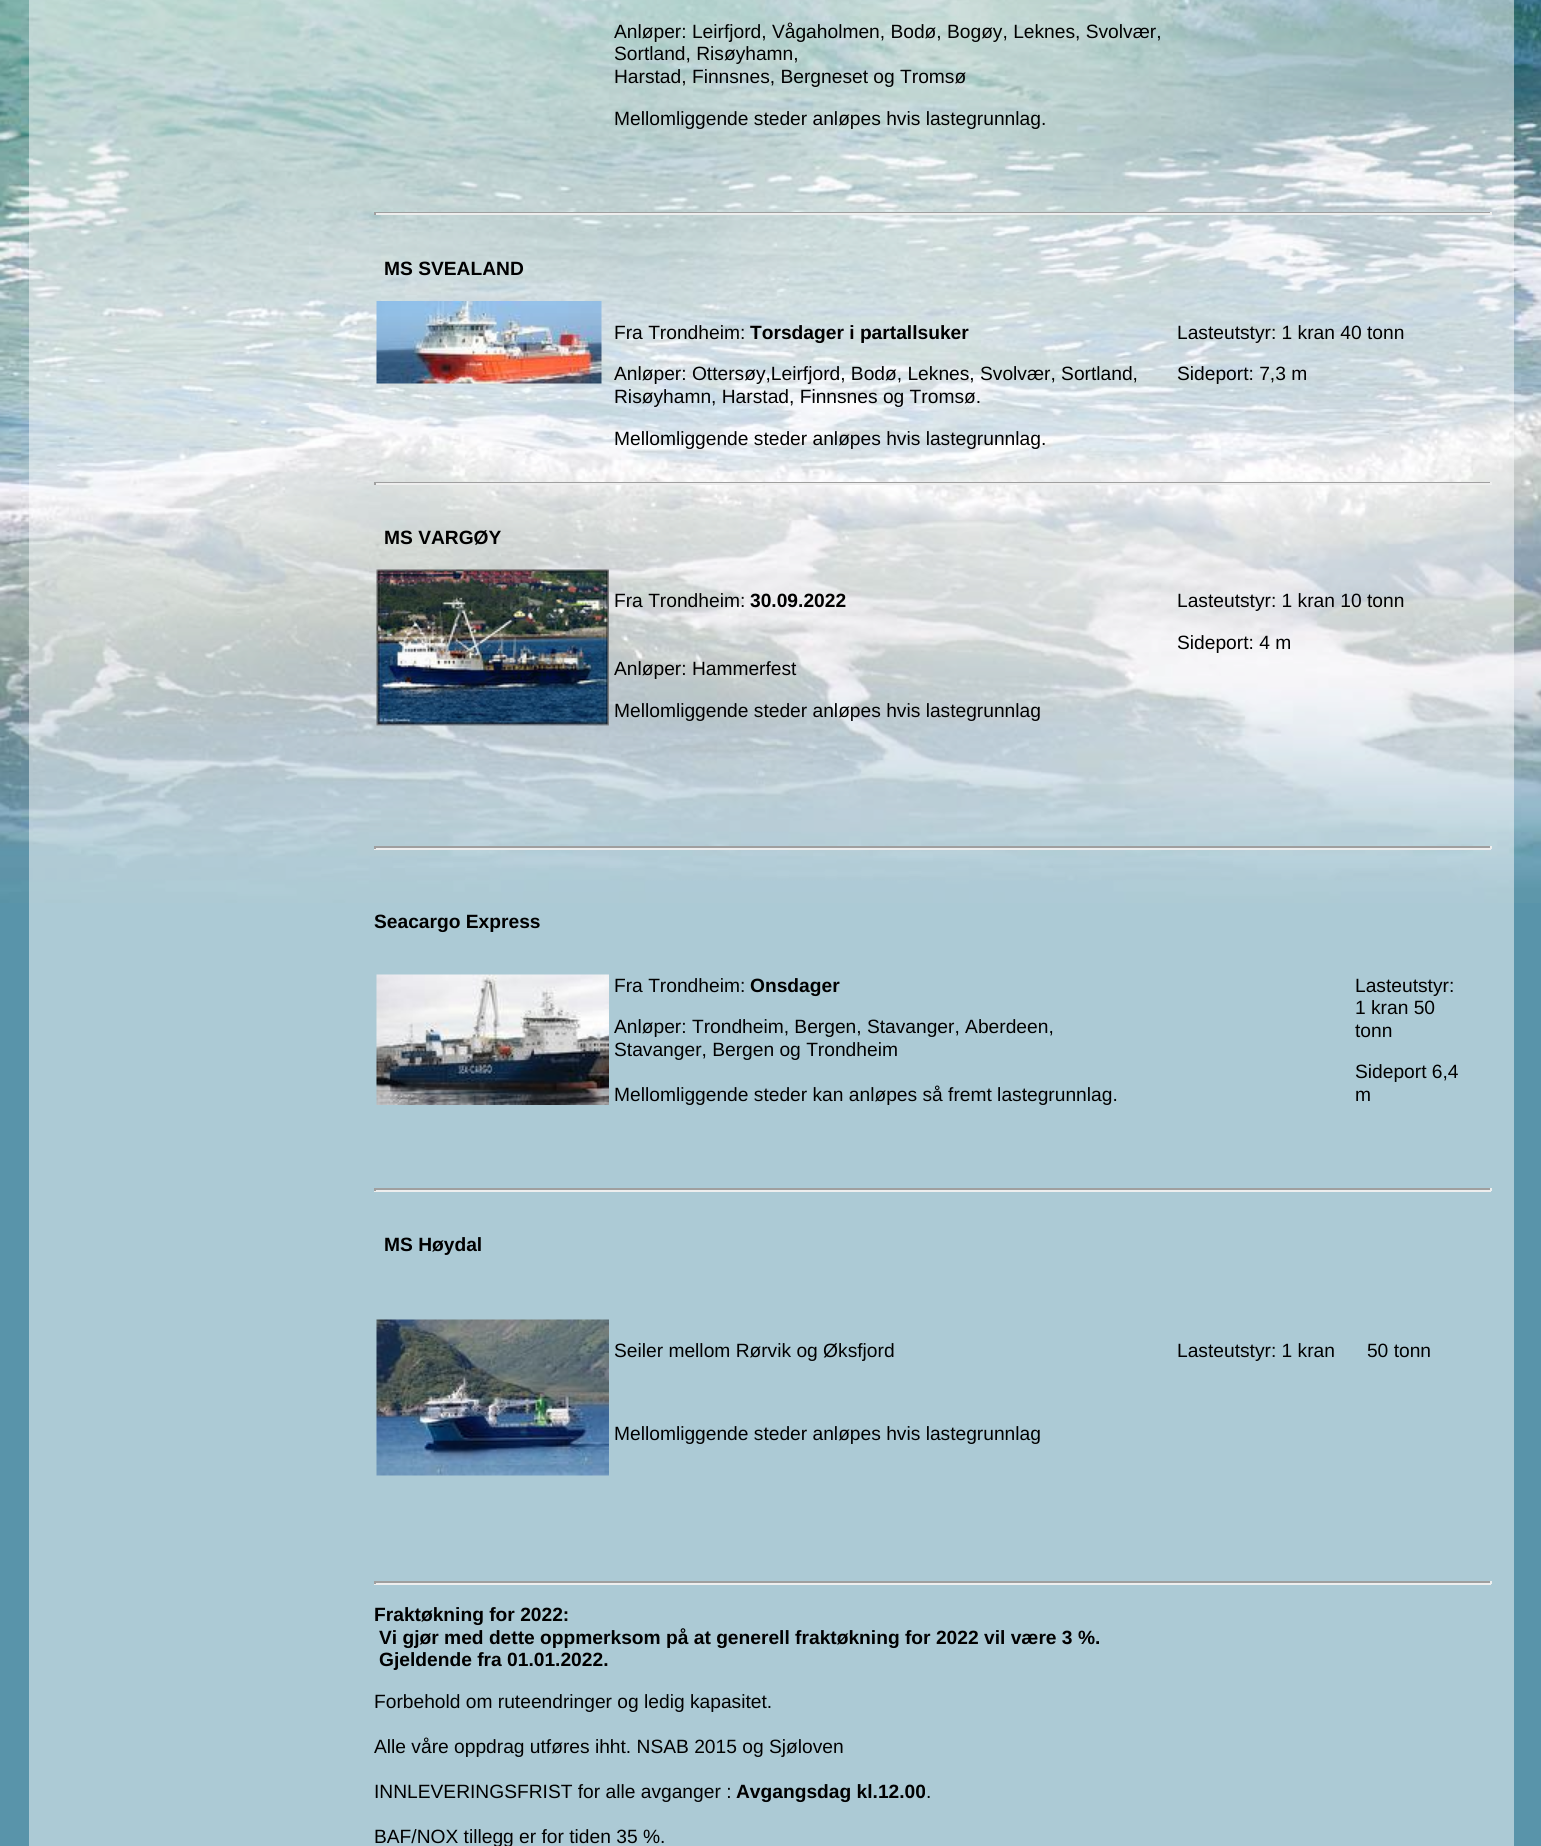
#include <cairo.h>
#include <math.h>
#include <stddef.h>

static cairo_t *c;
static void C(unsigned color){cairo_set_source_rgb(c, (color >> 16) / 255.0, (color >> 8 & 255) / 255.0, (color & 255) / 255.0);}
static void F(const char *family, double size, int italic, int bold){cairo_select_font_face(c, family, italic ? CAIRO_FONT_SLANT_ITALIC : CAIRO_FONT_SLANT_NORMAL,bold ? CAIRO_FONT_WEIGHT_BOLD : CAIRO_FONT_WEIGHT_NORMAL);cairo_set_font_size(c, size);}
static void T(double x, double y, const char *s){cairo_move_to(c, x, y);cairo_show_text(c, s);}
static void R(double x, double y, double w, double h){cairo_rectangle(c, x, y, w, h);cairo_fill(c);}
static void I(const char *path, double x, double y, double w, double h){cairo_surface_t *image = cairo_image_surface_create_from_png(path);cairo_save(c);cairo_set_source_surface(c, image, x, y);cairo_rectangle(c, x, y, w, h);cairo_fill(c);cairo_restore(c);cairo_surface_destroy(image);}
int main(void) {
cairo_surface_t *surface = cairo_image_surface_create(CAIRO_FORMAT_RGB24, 1541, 1846);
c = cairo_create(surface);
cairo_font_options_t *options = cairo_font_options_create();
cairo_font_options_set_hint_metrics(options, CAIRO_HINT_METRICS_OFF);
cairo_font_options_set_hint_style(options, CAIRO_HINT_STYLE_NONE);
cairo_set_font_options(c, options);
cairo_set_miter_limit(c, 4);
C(0x5994aa);
cairo_paint(c);
C(0xaccad5);
R(29,903,1485,943);
I("1.png",0,0,1541,903);
F("Liberation Sans",19.2,0,0);
C(0x000000);
T(614,38,"Anløper: Leirfjord, Vågaholmen, Bodø, Bogøy, Leknes, Svolvær,");
T(614,60,"Sortland, Risøyhamn,");
T(614,83,"Harstad, Finnsnes, Bergneset og Tromsø");
T(614,125,"Mellomliggende steder anløpes hvis lastegrunnlag.");
C(0x9f9f9f);
R(374,212,1117,1);
C(0xeeeeee);
R(1490,212,2,3);
R(374,213,1117,2);
C(0x9f9f9f);
R(374,212,2,3);
F("Liberation Sans",19.2,0,1);
C(0x000000);
T(384,275,"MS SVEALAND");
I("2.png",376,301,226,83);
F("Liberation Sans",19.2,0,0);
T(614,339,"Fra Trondheim:");
F("Liberation Sans",19.2,0,1);
T(750,339,"Torsdager i partallsuker");
F("Liberation Sans",19.2,0,0);
T(614,380,"Anløper: Ottersøy,Leirfjord, Bodø, Leknes, Svolvær, Sortland,");
T(614,403,"Risøyhamn, Harstad, Finnsnes og Tromsø.");
T(614,445,"Mellomliggende steder anløpes hvis lastegrunnlag.");
T(1177,339,"Lasteutstyr: 1 kran 40 tonn");
T(1177,380,"Sideport: 7,3 m");
C(0x9f9f9f);
R(374,482,1117,1);
C(0xeeeeee);
R(1490,482,2,3);
R(374,483,1117,2);
C(0x9f9f9f);
R(374,482,2,3);
F("Liberation Sans",19.2,0,1);
C(0x000000);
T(384,544,"MS VARGØY");
I("3.png",376,569,233,157);
F("Liberation Sans",19.2,0,0);
T(614,607,"Fra Trondheim:");
F("Liberation Sans",19.2,0,1);
T(750,607,"30.09.2022");
F("Liberation Sans",19.2,0,0);
T(614,675,"Anløper: Hammerfest");
T(614,717,"Mellomliggende steder anløpes hvis lastegrunnlag");
T(1177,607,"Lasteutstyr: 1 kran 10 tonn");
T(1177,649,"Sideport: 4 m");
C(0x9f9f9f);
R(374,846,1117,2);
C(0xeeeeee);
R(1490,846,2,3);
R(374,848,1117,2);
C(0x9f9f9f);
R(374,846,2,3);
F("Liberation Sans",19.2,0,1);
C(0x000000);
T(374,928,"Seacargo Express");
I("4.png",376,974,233,131);
F("Liberation Sans",19.2,0,0);
T(614,992,"Fra Trondheim:");
F("Liberation Sans",19.2,0,1);
T(750,992,"Onsdager");
F("Liberation Sans",19.2,0,0);
T(614,1033,"Anløper: Trondheim, Bergen, Stavanger, Aberdeen,");
T(614,1056,"Stavanger, Bergen og Trondheim");
T(614,1101,"Mellomliggende steder kan anløpes så fremt lastegrunnlag.");
T(1355,992,"Lasteutstyr:");
T(1355,1014,"1 kran 50");
T(1355,1037,"tonn");
T(1355,1078,"Sideport 6,4");
T(1355,1101,"m");
C(0x9f9f9f);
R(374,1188,1117,2);
C(0xeeeeee);
R(1490,1188,2,3);
R(374,1190,1117,2);
C(0x9f9f9f);
R(374,1188,2,3);
F("Liberation Sans",19.2,0,1);
C(0x000000);
T(384,1251,"MS Høydal");
I("5.png",376,1319,233,157);
F("Liberation Sans",19.2,0,0);
T(614,1357,"Seiler mellom Rørvik og Øksfjord");
T(614,1440,"Mellomliggende steder anløpes hvis lastegrunnlag");
T(1177,1357,"Lasteutstyr: 1 kran      50 tonn");
C(0x9f9f9f);
R(374,1581,1117,2);
C(0xeeeeee);
R(1490,1581,2,3);
R(374,1583,1117,2);
C(0x9f9f9f);
R(374,1581,2,3);
F("Liberation Sans",19.2,0,1);
C(0x000000);
T(374,1621,"Fraktøkning for 2022:");
T(379,1644,"Vi gjør med dette oppmerksom på at generell fraktøkning for 2022 vil være 3 %.");
T(379,1666,"Gjeldende fra 01.01.2022.");
F("Liberation Sans",19.2,0,0);
T(374,1708,"Forbehold om ruteendringer og ledig kapasitet.");
T(374,1753,"Alle våre oppdrag utføres ihht. NSAB 2015 og Sjøloven");
T(374,1798,"INNLEVERINGSFRIST for alle avganger :");
F("Liberation Sans",19.2,0,1);
T(736,1798,"Avgangsdag kl.12.00");
F("Liberation Sans",19.2,0,0);
T(926,1798,".");
T(374,1843,"BAF/NOX tillegg er for tiden 35 %.");
cairo_surface_write_to_png(surface, "o.png");
cairo_font_options_destroy(options);
cairo_destroy(c);
cairo_surface_destroy(surface);
return 0;
}
